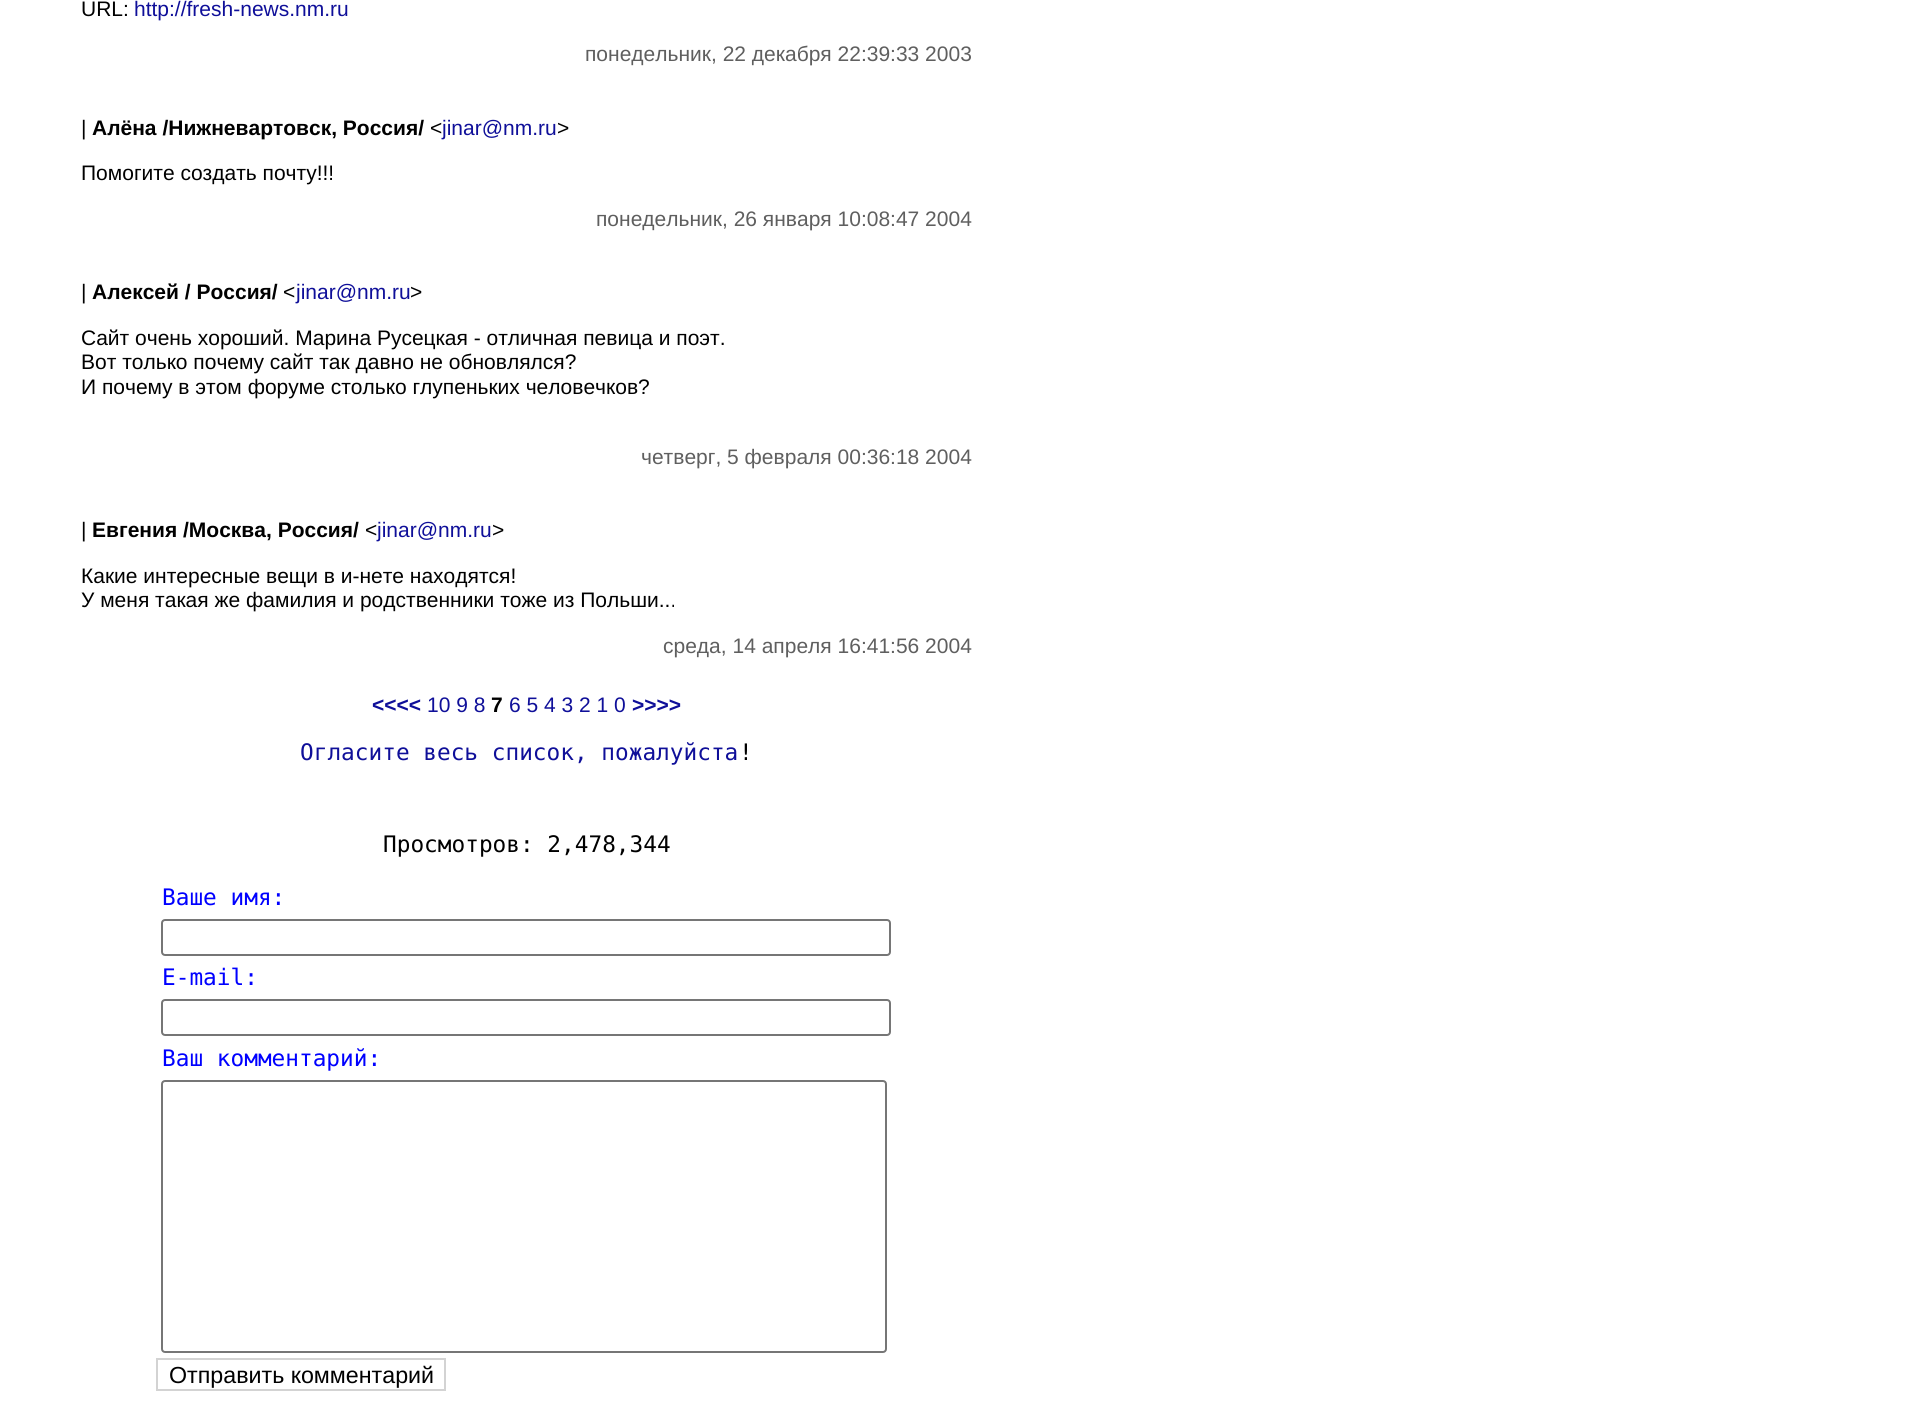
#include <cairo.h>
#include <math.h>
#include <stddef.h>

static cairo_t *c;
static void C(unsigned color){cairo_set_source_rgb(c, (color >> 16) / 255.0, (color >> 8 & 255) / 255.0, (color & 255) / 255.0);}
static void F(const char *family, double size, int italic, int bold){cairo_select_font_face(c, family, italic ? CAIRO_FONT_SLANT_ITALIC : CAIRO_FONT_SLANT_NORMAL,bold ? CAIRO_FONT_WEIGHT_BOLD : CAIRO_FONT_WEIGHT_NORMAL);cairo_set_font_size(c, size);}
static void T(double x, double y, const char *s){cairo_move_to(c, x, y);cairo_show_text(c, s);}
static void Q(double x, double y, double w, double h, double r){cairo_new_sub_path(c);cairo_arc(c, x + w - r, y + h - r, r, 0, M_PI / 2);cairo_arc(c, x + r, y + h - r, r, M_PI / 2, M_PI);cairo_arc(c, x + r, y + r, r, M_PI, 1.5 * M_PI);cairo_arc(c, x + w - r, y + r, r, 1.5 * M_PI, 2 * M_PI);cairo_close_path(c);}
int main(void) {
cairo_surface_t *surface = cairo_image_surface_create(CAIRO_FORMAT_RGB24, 1913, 1425);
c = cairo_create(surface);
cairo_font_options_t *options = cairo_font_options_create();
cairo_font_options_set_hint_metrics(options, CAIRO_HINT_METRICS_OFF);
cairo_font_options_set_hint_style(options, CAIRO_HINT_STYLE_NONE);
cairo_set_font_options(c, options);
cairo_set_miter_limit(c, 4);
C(0xffffff);
cairo_paint(c);
F("Liberation Sans",21,0,0);
C(0x000000);
T(81,16,"URL:");
C(0x0f0f99);
T(134,16,"http://fresh-news.nm.ru");
C(0x5f5f5f);
T(585,61,"понедельник, 22 декабря 22:39:33 2003");
C(0x000000);
T(81,135,"|");
F("Liberation Sans",21,0,1);
T(92,135,"Алёна /Нижневартовск, Россия/");
F("Liberation Sans",21,0,0);
T(430,135,"<");
C(0x0f0f99);
T(442,135,"jinar@nm.ru");
C(0x000000);
T(557,135,">");
T(81,180,"Помогите создать почту!!!");
C(0x5f5f5f);
T(596,226,"понедельник, 26 января 10:08:47 2004");
C(0x000000);
T(81,299,"|");
F("Liberation Sans",21,0,1);
T(92,299,"Алексей / Россия/");
F("Liberation Sans",21,0,0);
T(283,299,"<");
C(0x0f0f99);
T(296,299,"jinar@nm.ru");
C(0x000000);
T(410,299,">");
T(81,345,"Сайт очень хороший. Марина Русецкая - отличная певица и поэт.");
T(81,369,"Вот только почему сайт так давно не обновлялся?");
T(81,394,"И почему в этом форуме столько глупеньких человечков?");
C(0x5f5f5f);
T(641,464,"четверг, 5 февраля 00:36:18 2004");
C(0x000000);
T(81,537,"|");
F("Liberation Sans",21,0,1);
T(92,537,"Евгения /Москва, Россия/");
F("Liberation Sans",21,0,0);
T(365,537,"<");
C(0x0f0f99);
T(377,537,"jinar@nm.ru");
C(0x000000);
T(492,537,">");
T(81,583,"Какие интересные вещи в и-нете находятся!");
T(81,607,"У меня такая же фамилия и родственники тоже из Польши...");
C(0x5f5f5f);
T(663,653,"среда, 14 апреля 16:41:56 2004");
F("Liberation Sans",21,0,1);
C(0x0f0f99);
T(372,712,"<<<<");
F("Liberation Sans",21,0,0);
T(427,712,"10 9 8");
F("Liberation Sans",21,0,1);
C(0x000000);
T(491,712,"7");
F("Liberation Sans",21,0,0);
C(0x0f0f99);
T(509,712,"6 5 4 3 2 1 0");
F("Liberation Sans",21,0,1);
T(632,712,">>>>");
F("DejaVu Sans Mono",22.75,0,0);
T(300,760,"Огласите весь список, пожалуйста");
C(0x000000);
T(739,760,"!");
T(383,852,"Просмотров: 2,478,344");
C(0x0000ff);
T(162,905,"Ваше имя:");
Q(162,920,728,35,3);
C(0x767676);
cairo_stroke(c);
C(0x0000ff);
T(162,985,"E-mail:");
Q(162,1000,728,35,3);
C(0x767676);
cairo_stroke(c);
C(0x0000ff);
T(162,1066,"Ваш комментарий:");
Q(162,1081,724,271,3);
C(0x767676);
cairo_stroke(c);
cairo_rectangle(c,157,1359,288,31);
C(0xd3d3d3);
cairo_stroke(c);
F("Liberation Sans",23.25,0,0);
C(0x000000);
T(169,1383,"Отправить комментарий");
cairo_surface_write_to_png(surface, "o.png");
cairo_font_options_destroy(options);
cairo_destroy(c);
cairo_surface_destroy(surface);
return 0;
}
